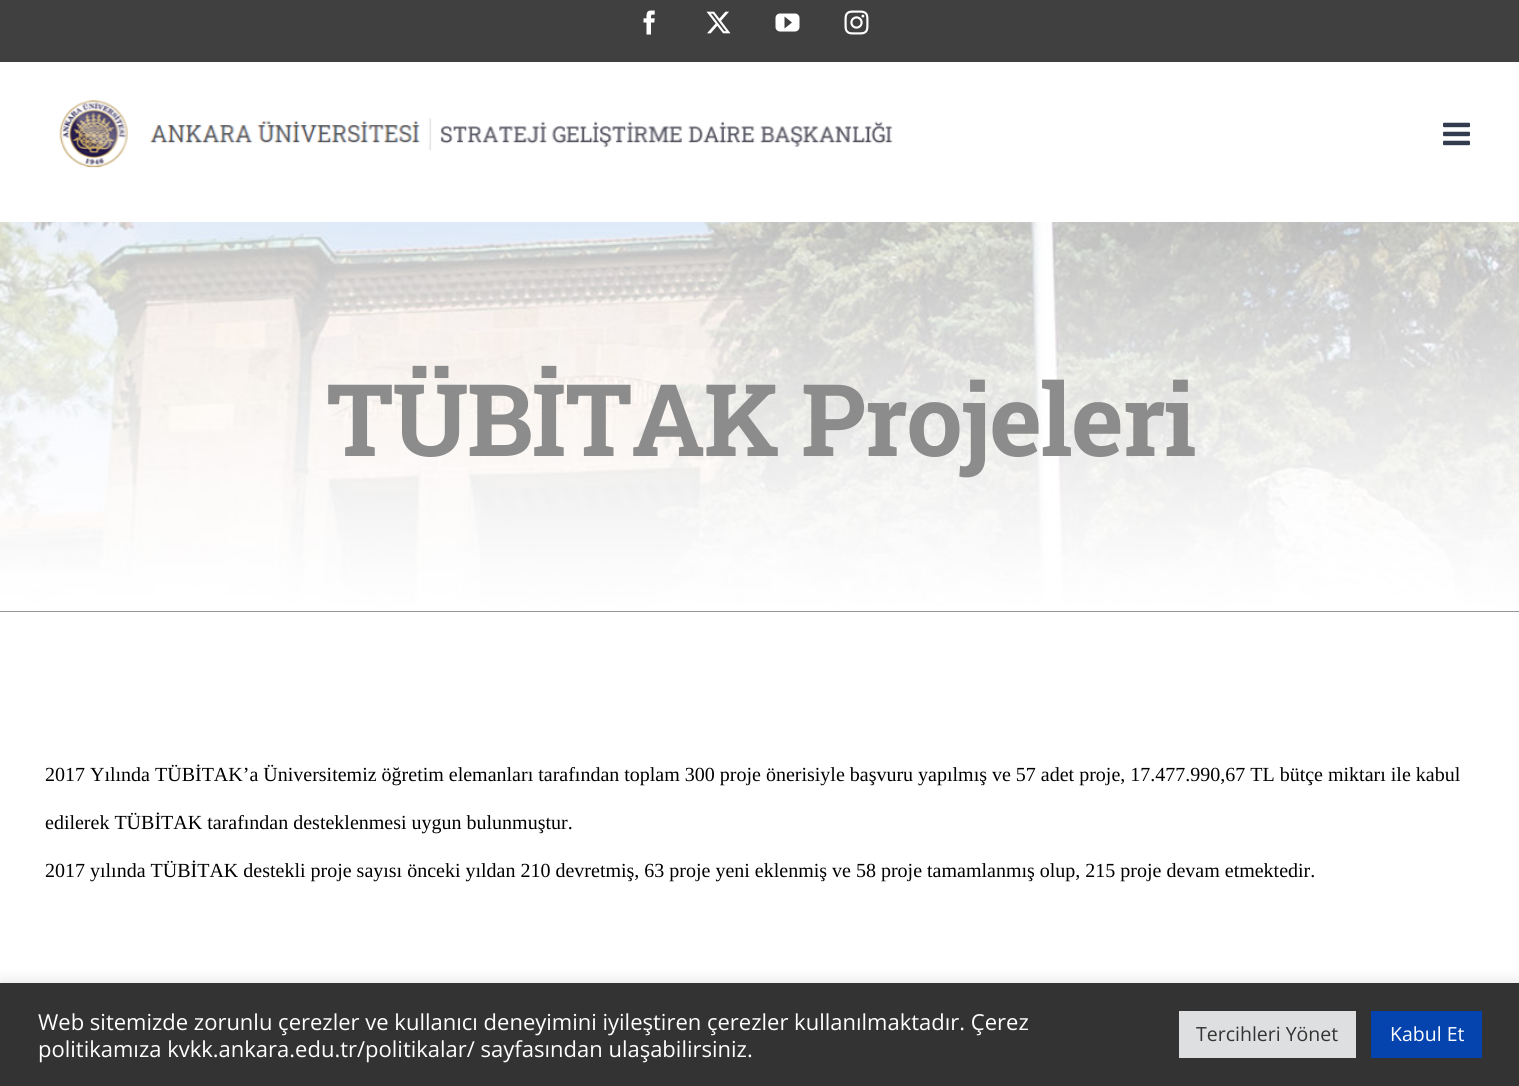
#include <cairo.h>
#include <math.h>
#include <stddef.h>

static cairo_t *c;
static void C(unsigned color){cairo_set_source_rgb(c, (color >> 16) / 255.0, (color >> 8 & 255) / 255.0, (color & 255) / 255.0);}
static void F(const char *family, double size, int italic, int bold){cairo_select_font_face(c, family, italic ? CAIRO_FONT_SLANT_ITALIC : CAIRO_FONT_SLANT_NORMAL,bold ? CAIRO_FONT_WEIGHT_BOLD : CAIRO_FONT_WEIGHT_NORMAL);cairo_set_font_size(c, size);}
static void T(double x, double y, const char *s){cairo_move_to(c, x, y);cairo_show_text(c, s);}
static void L(double x, double y, const char *s, double letter, double word){cairo_move_to(c, x, y);while (*s) {char ch[5] = {0};int n = 0;do ch[n++] = *s++; while ((*s & 0xC0) == 0x80);cairo_show_text(c, ch);cairo_rel_move_to(c, letter + word * (*ch == ' '), 0);}}
static void R(double x, double y, double w, double h){cairo_rectangle(c, x, y, w, h);cairo_fill(c);}
static void Q(double x, double y, double w, double h, double r){cairo_new_sub_path(c);cairo_arc(c, x + w - r, y + h - r, r, 0, M_PI / 2);cairo_arc(c, x + r, y + h - r, r, M_PI / 2, M_PI);cairo_arc(c, x + r, y + r, r, M_PI, 1.5 * M_PI);cairo_arc(c, x + w - r, y + r, r, 1.5 * M_PI, 2 * M_PI);cairo_close_path(c);}
static void S(double x, double y, double w, double h, double r, double blur, double alpha){cairo_push_group_with_content(c, CAIRO_CONTENT_ALPHA);cairo_set_operator(c, CAIRO_OPERATOR_SOURCE);for (int i = 15; i >= -15 && fmin(w, h) + blur * i / 3 > 0; i -= 2) {double e = blur * i / 6;cairo_set_source_rgba(c, 0, 0, 0, alpha * erfc((i - 1) / 8.5) / 2);Q(x - e, y - e, w + 2 * e, h + 2 * e, fmax(0, fmin(r + e + blur * .6, fmin(w, h) / 2 + e)));cairo_fill(c);}cairo_pattern_t *soft = cairo_pop_group(c);cairo_mask(c, soft);cairo_pattern_destroy(soft);}
static void I(const char *path, double x, double y, double w, double h){cairo_surface_t *image = cairo_image_surface_create_from_png(path);cairo_save(c);cairo_set_source_surface(c, image, x, y);cairo_rectangle(c, x, y, w, h);cairo_fill(c);cairo_restore(c);cairo_surface_destroy(image);}
int main(void) {
cairo_surface_t *surface = cairo_image_surface_create(CAIRO_FORMAT_RGB24, 1519, 1086);
c = cairo_create(surface);
cairo_font_options_t *options = cairo_font_options_create();
cairo_font_options_set_hint_metrics(options, CAIRO_HINT_METRICS_OFF);
cairo_font_options_set_hint_style(options, CAIRO_HINT_STYLE_NONE);
cairo_set_font_options(c, options);
cairo_set_miter_limit(c, 4);
C(0xffffff);
cairo_paint(c);
C(0x404041);
R(0,0,1519,62);
I("1.png",643,10,12,25);
I("2.png",706,11,25,23);
I("3.png",775,13,25,19);
I("4.png",844,10,25,25);
I("5.png",59,100,834,68);
I("6.png",1443,122,27,24);
C(0x2c2f39);
R(0,611,1519,1);
I("7.png",0,222,1519,390);
F("Roboto Slab",100.25,0,1);
C(0x8c8c8c);
L(326,456,"TÜBİTAK Projeleri",-1.5,0);
F("Liberation Serif",20,0,0);
C(0x000000);
T(45,781,"2017 Yılında TÜBİTAK’a Üniversitemiz öğretim elemanları tarafından toplam 300 proje önerisiyle başvuru yapılmış ve 57 adet proje, 17.477.990,67 TL bütçe miktarı ile kabul");
T(45,829,"edilerek TÜBİTAK tarafından desteklenmesi uygun bulunmuştur.");
T(45,877,"2017 yılında TÜBİTAK destekli proje sayısı önceki yıldan 210 devretmiş, 63 proje yeni eklenmiş ve 58 proje tamamlanmış olup, 215 proje devam etmektedir.");
C(0xacabab);
S(0,981,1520,104,0,7.5,.3);
C(0x333333);
R(0,983,1519,103);
F("Open Sans",22,0,0);
C(0xffffff);
T(38,1030,"Web sitemizde zorunlu çerezler ve kullanıcı deneyimini iyileştiren çerezler kullanılmaktadır. Çerez");
T(38,1057,"politikamıza kvkk.ankara.edu.tr/politikalar/ sayfasından ulaşabilirsiniz.");
C(0xdedfe0);
R(1179,1011,177,47);
F("Open Sans",19.5,0,0);
C(0x333333);
T(1196,1041,"Tercihleri Yönet");
C(0x0544ae);
R(1371,1011,111,47);
C(0xffffff);
T(1390,1041,"Kabul Et");
cairo_surface_write_to_png(surface, "o.png");
cairo_font_options_destroy(options);
cairo_destroy(c);
cairo_surface_destroy(surface);
return 0;
}
